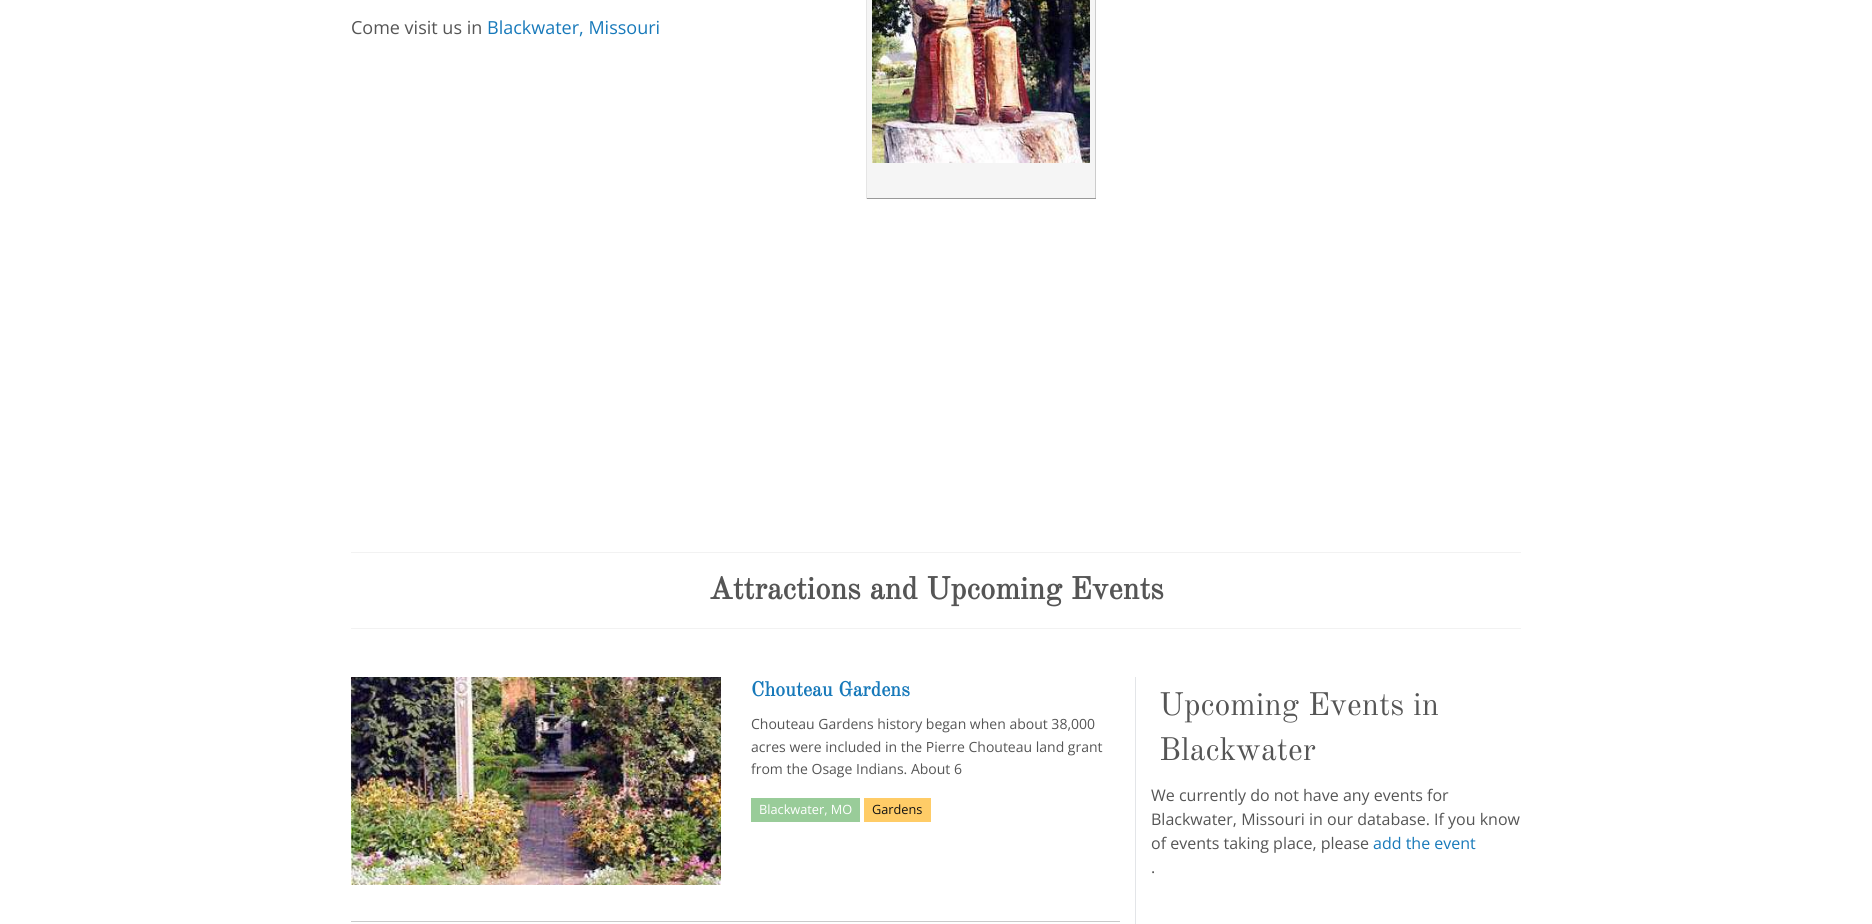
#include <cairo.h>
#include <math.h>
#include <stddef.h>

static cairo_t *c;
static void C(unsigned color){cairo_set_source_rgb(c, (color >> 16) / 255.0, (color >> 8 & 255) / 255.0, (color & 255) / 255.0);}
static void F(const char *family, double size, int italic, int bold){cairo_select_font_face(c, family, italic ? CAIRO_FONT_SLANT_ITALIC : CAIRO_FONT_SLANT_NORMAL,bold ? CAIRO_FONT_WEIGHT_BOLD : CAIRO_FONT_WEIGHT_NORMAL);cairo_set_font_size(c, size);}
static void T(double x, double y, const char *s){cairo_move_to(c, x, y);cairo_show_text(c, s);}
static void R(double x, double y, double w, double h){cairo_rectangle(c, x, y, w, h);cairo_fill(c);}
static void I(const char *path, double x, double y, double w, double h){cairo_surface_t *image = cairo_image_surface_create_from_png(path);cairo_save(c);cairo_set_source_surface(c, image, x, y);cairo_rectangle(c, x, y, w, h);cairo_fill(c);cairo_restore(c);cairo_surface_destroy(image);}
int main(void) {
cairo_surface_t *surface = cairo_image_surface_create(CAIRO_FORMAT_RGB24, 1872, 924);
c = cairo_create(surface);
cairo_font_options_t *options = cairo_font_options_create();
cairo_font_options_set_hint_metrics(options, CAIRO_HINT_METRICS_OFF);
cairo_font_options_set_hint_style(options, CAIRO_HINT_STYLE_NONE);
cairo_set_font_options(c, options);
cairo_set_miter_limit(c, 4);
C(0xffffff);
cairo_paint(c);
F("Open Sans",18,0,0);
C(0x555555);
T(351,34,"Come visit us in");
C(0x1779ba);
T(487,34,"Blackwater, Missouri");
C(0xf5f5f5);
R(867,0,228,198);
C(0xcccccc);
R(1095,0,1,199);
C(0x999999);
R(866,198,230,1);
C(0xe5e5e5);
R(866,0,1,199);
I("1.png",872,0,218,163);
C(0xf2f2f2);
R(351,552,1170,1);
R(351,628,1170,1);
F("Old Standard TT",31,0,1);
C(0x555555);
T(709,599,"Attractions and Upcoming Events");
C(0xe3e5e8);
R(1135,677,1,247);
I("2.png",351,677,370,208);
F("Old Standard TT",20,0,1);
C(0x1779ba);
T(751,696,"Chouteau Gardens");
F("Open Sans",14,0,0);
C(0x555555);
T(751,729,"Chouteau Gardens history began when about 38,000");
T(751,752,"acres were included in the Pierre Chouteau land grant");
T(751,774,"from the Osage Indians. About 6");
C(0x99cc99);
R(751,798,109,24);
F("Open Sans",12.75,0,0);
C(0xffffff);
T(759,814,"Blackwater, MO");
C(0xffcc67);
R(864,798,67,24);
C(0x121212);
T(872,814,"Gardens");
C(0xcacaca);
R(351,921,769,1);
F("Old Standard TT",32,0,0);
C(0x555555);
T(1159,715,"Upcoming Events in");
T(1159,760,"Blackwater");
F("Open Sans",16,0,0);
T(1151,801,"We currently do not have any events for");
T(1151,825,"Blackwater, Missouri in our database. If you know");
T(1151,849,"of events taking place, please");
C(0x1779ba);
T(1373,849,"add the event");
C(0x555555);
T(1151,873,".");
cairo_surface_write_to_png(surface, "o.png");
cairo_font_options_destroy(options);
cairo_destroy(c);
cairo_surface_destroy(surface);
return 0;
}
